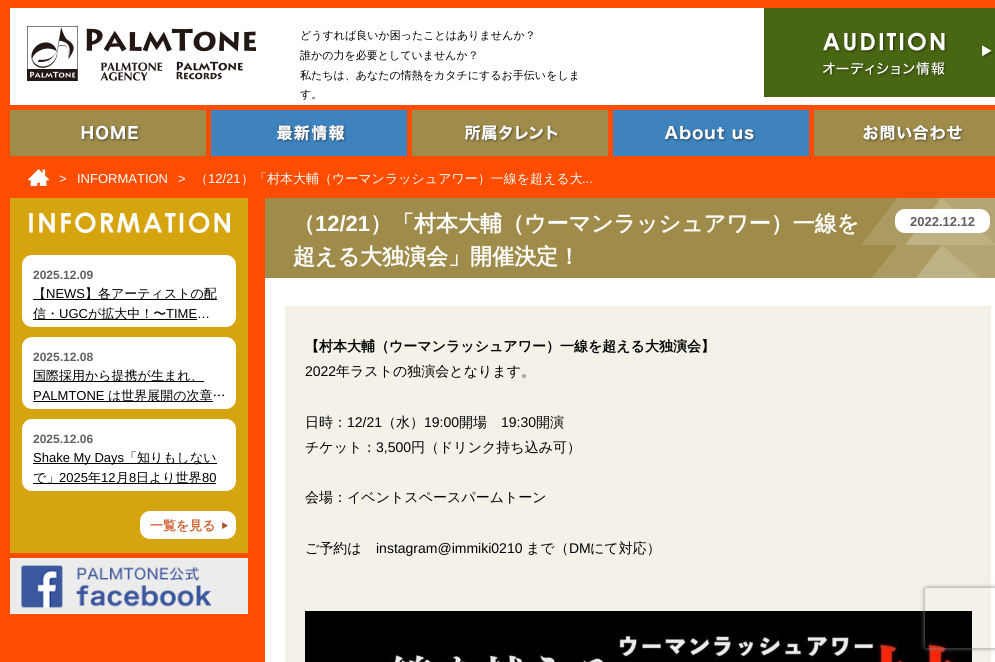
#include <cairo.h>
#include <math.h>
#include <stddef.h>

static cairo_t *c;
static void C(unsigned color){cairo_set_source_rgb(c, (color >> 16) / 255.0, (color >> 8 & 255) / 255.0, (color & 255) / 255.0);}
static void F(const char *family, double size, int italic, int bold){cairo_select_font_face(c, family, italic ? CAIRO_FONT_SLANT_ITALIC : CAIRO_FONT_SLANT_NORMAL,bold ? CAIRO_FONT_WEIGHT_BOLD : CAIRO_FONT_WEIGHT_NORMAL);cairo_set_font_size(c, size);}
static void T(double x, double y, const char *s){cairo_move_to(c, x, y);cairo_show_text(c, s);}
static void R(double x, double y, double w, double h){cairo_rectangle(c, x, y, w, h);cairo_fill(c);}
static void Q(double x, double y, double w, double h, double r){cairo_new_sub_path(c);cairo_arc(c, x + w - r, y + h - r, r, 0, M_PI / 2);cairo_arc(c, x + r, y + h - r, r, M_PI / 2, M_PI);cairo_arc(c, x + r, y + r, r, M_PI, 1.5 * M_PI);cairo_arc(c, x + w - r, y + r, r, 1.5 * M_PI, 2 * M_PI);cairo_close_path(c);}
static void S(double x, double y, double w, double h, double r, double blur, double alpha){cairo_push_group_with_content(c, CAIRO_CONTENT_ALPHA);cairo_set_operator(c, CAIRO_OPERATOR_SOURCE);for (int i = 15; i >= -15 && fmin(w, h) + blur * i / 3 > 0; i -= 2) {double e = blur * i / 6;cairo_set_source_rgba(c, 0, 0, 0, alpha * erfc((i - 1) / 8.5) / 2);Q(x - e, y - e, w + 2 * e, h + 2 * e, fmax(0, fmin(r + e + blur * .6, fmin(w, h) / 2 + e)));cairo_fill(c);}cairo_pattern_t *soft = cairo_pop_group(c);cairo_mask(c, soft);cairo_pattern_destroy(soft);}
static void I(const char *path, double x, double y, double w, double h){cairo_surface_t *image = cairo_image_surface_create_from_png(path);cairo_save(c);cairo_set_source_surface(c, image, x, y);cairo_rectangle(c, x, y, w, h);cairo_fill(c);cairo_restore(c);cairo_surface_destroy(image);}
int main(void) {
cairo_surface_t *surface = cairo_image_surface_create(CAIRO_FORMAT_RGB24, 995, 662);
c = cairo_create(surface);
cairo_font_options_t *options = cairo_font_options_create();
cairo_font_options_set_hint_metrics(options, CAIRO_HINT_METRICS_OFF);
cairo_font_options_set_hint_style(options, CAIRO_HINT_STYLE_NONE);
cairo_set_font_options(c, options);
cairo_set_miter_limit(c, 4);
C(0xffffff);
cairo_paint(c);
C(0xff4d00);
R(10,0,985,8);
R(0,0,10,161);
I("1.png",27,26,229,55);
F("WenQuanYi Zen Hei Medium",11,0,0);
C(0x000000);
T(300,39,"どうすれば良いか困ったことはありませんか？");
T(300,59,"誰かの力を必要としていませんか？");
T(300,79,"私たちは、あなたの情熱をカタチにするお手伝いをしま");
T(300,98,"す。");
I("2.png",764,8,231,89);
C(0xff4d00);
R(10,105,985,5);
R(10,156,985,5);
R(206,110,5,46);
I("3.png",10,110,196,46);
R(407,110,5,46);
I("4.png",211,110,196,46);
R(608,110,5,46);
I("5.png",412,110,196,46);
R(809,110,5,46);
I("6.png",613,110,196,46);
I("7.png",814,110,181,46);
R(0,161,995,37);
I("8.png",28,169,21,17);
F("Liberation Sans",13,0,0);
C(0xffffff);
T(59,183,">");
T(77,183,"INFORMATION");
T(178,183,">");
F("WenQuanYi Zen Hei Medium",13,0,0);
T(195,183,"（");
F("Liberation Sans",13,0,0);
T(208,183,"12/21");
F("WenQuanYi Zen Hei Medium",13,0,0);
T(241,183,"）「村本大輔（ウーマンラッシュアワー）一線を超える大");
F("Liberation Sans",13,0,0);
T(582,183,"...");
C(0xff4d00);
R(0,198,265,464);
C(0xd6a40e);
R(10,198,238,355);
I("9.png",29,212,201,21);
C(0xffffff);
Q(22,255,214,72,10);
cairo_fill(c);
F("Liberation Sans",12,0,1);
C(0x606060);
T(33,279,"2025.12.09");
C(0x000000);
R(33,299,184,1);
F("WenQuanYi Zen Hei Medium",13,0,0);
T(33,298,"【");
F("Liberation Sans",13,0,0);
T(46,298,"NEWS");
F("WenQuanYi Zen Hei Medium",13,0,0);
T(85,298,"】各アーティストの配");
R(33,319,164,1);
T(33,318,"信・");
F("Liberation Sans",13,0,0);
T(59,318,"UGC");
F("WenQuanYi Zen Hei Medium",13,0,0);
T(88,318,"が拡大中！〜");
F("Liberation Sans",13,0,0);
T(166,318,"TIME…");
C(0xffffff);
Q(22,337,214,72,10);
cairo_fill(c);
F("Liberation Sans",12,0,1);
C(0x606060);
T(33,361,"2025.12.08");
C(0x000000);
R(33,381,171,1);
F("WenQuanYi Zen Hei Medium",13,0,0);
T(33,380,"国際採用から提携が生まれ、");
F("Liberation Sans",13,0,0);
T(33,400,"PALMTONE");
R(33,401,180,1);
F("WenQuanYi Zen Hei Medium",13,0,0);
T(108,400,"は世界展開の次章…");
C(0xffffff);
Q(22,419,214,72,10);
cairo_fill(c);
F("Liberation Sans",12,0,1);
C(0x606060);
T(33,443,"2025.12.06");
C(0x000000);
R(33,463,184,1);
F("Liberation Sans",13,0,0);
T(33,462,"Shake My Days");
F("WenQuanYi Zen Hei Medium",13,0,0);
T(124,462,"「知りもしない");
R(33,483,183,1);
T(33,482,"で」");
F("Liberation Sans",13,0,0);
T(59,482,"2025");
F("WenQuanYi Zen Hei Medium",13,0,0);
T(88,482,"年");
F("Liberation Sans",13,0,0);
T(101,482,"12");
F("WenQuanYi Zen Hei Medium",13,0,0);
T(116,482,"月");
F("Liberation Sans",13,0,0);
T(129,482,"8");
F("WenQuanYi Zen Hei Medium",13,0,0);
T(136,482,"日より世界");
F("Liberation Sans",13,0,0);
T(202,482,"80");
C(0xffffff);
Q(140,511,96,28,10);
cairo_fill(c);
F("WenQuanYi Zen Hei",13,0,1);
C(0xcf6130);
T(150,530,"一覧を見る");
I("10.png",222,522,6,7);
I("11.png",10,558,238,56);
I("12.png",265,198,730,80);
F("WenQuanYi Zen Hei",22,0,1);
C(0xffffff);
T(293,231,"（");
F("Liberation Sans",22,0,1);
T(315,231,"12/21");
F("WenQuanYi Zen Hei",22,0,1);
T(370,231,"）「村本大輔（ウーマンラッシュアワー）一線を");
Q(895,209,95,24,10);
cairo_fill(c);
F("Liberation Sans",13,0,1);
C(0x606060);
T(910,226,"2022.12.12");
F("WenQuanYi Zen Hei",22,0,1);
C(0xffffff);
T(293,264,"超える大独演会」開催決定！");
C(0xf4f1e8);
R(285,306,706,356);
F("WenQuanYi Zen Hei",14,0,1);
C(0x000000);
T(305,351,"【村本大輔（ウーマンラッシュアワー）一線を超える大独演会】");
F("Liberation Sans",14,0,0);
T(305,376,"2022");
F("WenQuanYi Zen Hei Medium",14,0,0);
T(336,376,"年ラストの独演会となります。");
T(305,427,"日時：");
F("Liberation Sans",14,0,0);
T(347,427,"12/21");
F("WenQuanYi Zen Hei Medium",14,0,0);
T(382,427,"（水）");
F("Liberation Sans",14,0,0);
T(424,427,"19:00");
F("WenQuanYi Zen Hei Medium",14,0,0);
T(459,427,"開場");
F("Liberation Sans",14,0,0);
T(501,427,"19:30");
F("WenQuanYi Zen Hei Medium",14,0,0);
T(536,427,"開演");
T(305,452,"チケット：");
F("Liberation Sans",14,0,0);
T(376,452,"3,500");
F("WenQuanYi Zen Hei Medium",14,0,0);
T(411,452,"円（ドリンク持ち込み可）");
T(305,502,"会場：イベントスペースパームトーン");
T(305,553,"ご予約は");
F("Liberation Sans",14,0,0);
T(376,553,"instagram@immiki0210");
F("WenQuanYi Zen Hei Medium",14,0,0);
T(526,553,"まで（");
F("Liberation Sans",14,0,0);
T(569,553,"DM");
F("WenQuanYi Zen Hei Medium",14,0,0);
T(590,553,"にて対応）");
I("13.png",305,611,667,51);
cairo_save(c);
cairo_set_fill_rule(c,CAIRO_FILL_RULE_EVEN_ODD);
cairo_new_path(c);
cairo_move_to(c,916,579);
cairo_line_to(c,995,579);
cairo_line_to(c,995,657);
cairo_line_to(c,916,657);
cairo_close_path(c);
cairo_move_to(c,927,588);
cairo_line_to(c,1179,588);
cairo_curve_to(c,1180,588,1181,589,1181,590);
cairo_line_to(c,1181,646);
cairo_curve_to(c,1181,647,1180,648,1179,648);
cairo_line_to(c,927,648);
cairo_curve_to(c,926,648,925,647,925,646);
cairo_line_to(c,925,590);
cairo_curve_to(c,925,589,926,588,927,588);
cairo_close_path(c);
cairo_clip(c);
C(0x808080);
S(925,588,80,60,2,2.5,1);
cairo_restore(c);
cairo_surface_write_to_png(surface, "o.png");
cairo_font_options_destroy(options);
cairo_destroy(c);
cairo_surface_destroy(surface);
return 0;
}
